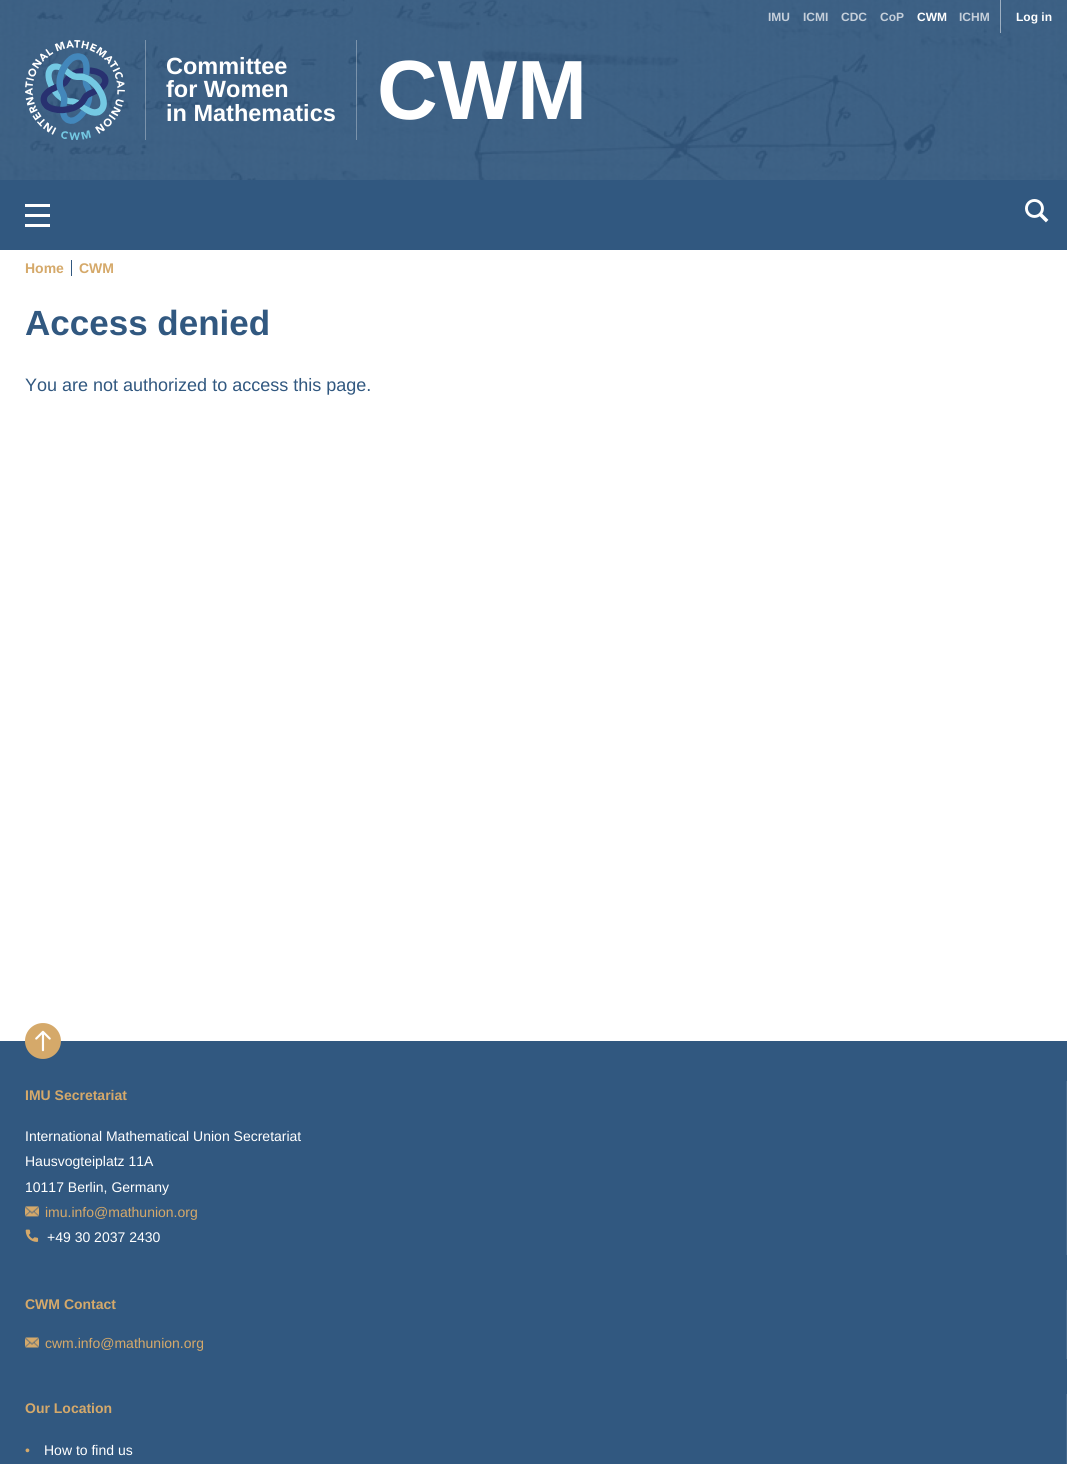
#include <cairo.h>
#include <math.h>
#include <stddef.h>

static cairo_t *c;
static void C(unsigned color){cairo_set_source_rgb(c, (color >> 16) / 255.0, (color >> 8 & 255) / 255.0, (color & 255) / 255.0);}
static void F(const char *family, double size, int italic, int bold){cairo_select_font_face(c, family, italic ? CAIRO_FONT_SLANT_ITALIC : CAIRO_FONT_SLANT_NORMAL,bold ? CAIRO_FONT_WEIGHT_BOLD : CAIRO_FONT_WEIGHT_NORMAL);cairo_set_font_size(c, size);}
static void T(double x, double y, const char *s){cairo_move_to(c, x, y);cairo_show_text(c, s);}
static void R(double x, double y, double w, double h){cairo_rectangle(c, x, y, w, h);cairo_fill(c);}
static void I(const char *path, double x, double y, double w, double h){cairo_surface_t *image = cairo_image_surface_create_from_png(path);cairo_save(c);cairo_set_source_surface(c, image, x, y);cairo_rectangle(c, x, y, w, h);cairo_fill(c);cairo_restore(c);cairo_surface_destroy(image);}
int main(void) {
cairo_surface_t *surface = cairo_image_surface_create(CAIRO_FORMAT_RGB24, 1067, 1464);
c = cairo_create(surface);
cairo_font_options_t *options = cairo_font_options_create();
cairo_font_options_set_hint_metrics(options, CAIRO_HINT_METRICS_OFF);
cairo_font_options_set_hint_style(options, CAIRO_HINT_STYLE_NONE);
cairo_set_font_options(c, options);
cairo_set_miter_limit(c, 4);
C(0xffffff);
cairo_paint(c);
I("1.png",0,0,1067,180);
F("Liberation Sans",12,0,1);
C(0xc5cfda);
T(768,21,"IMU");
T(803,21,"ICMI");
T(841,21,"CDC");
T(880,21,"CoP");
C(0xffffff);
T(917,21,"CWM");
C(0xc5cfda);
T(959,21,"ICHM");
cairo_set_source_rgba(c,1,1,1,0.5);
R(1000,0,1,33);
C(0xffffff);
T(1016,21,"Log in");
cairo_set_source_rgba(c,1,1,1,0.32);
R(145,40,1,100);
I("2.png",25,40,100,100);
R(356,40,1,100);
F("Liberation Sans",23.5,0,1);
C(0xffffff);
T(166,74,"Committee");
T(166,97,"for Women");
T(166,121,"in Mathematics");
F("Liberation Sans",84,0,1);
T(377,119,"CWM");
C(0x315880);
R(0,180,1067,70);
C(0xffffff);
R(25,214,25,3);
R(25,204,25,3);
R(25,224,25,3);
I("3.png",1025,199,24,24);
C(0x315880);
R(71,260,1,16);
F("Liberation Sans",14,0,1);
C(0xd5a96a);
T(25,273,"Home");
T(79,273,"CWM");
F("Liberation Sans",35,0,1);
C(0x315880);
T(25,335,"Access denied");
F("Liberation Sans",18,0,0);
T(25,391,"You are not authorized to access this page.");
R(0,1041,1067,423);
I("4.png",25,1023,36,36);
C(0x46698d);
R(1066,1081,1,174);
F("Liberation Sans",14,0,1);
C(0xd5a96a);
T(25,1100,"IMU Secretariat");
F("Liberation Sans",14,0,0);
C(0xffffff);
T(25,1141,"International Mathematical Union Secretariat");
T(25,1166,"Hausvogteiplatz 11A");
T(25,1192,"10117 Berlin, Germany");
I("5.png",25,1206,14,11);
C(0xd5a96a);
T(45,1217,"imu.info@mathunion.org");
I("6.png",25,1229,14,13);
C(0xffffff);
T(47,1242,"+49 30 2037 2430");
C(0x46698d);
R(1066,1290,1,69);
F("Liberation Sans",14,0,1);
C(0xd5a96a);
T(25,1309,"CWM Contact");
I("7.png",25,1337,14,11);
F("Liberation Sans",14,0,0);
T(45,1348,"cwm.info@mathunion.org");
C(0x46698d);
R(1066,1394,1,70);
F("Liberation Sans",14,0,1);
C(0xd5a96a);
T(25,1413,"Our Location");
F("Liberation Sans",14,0,0);
T(25,1455,"•");
C(0xffffff);
T(44,1455,"How to find us");
cairo_surface_write_to_png(surface, "o.png");
cairo_font_options_destroy(options);
cairo_destroy(c);
cairo_surface_destroy(surface);
return 0;
}
